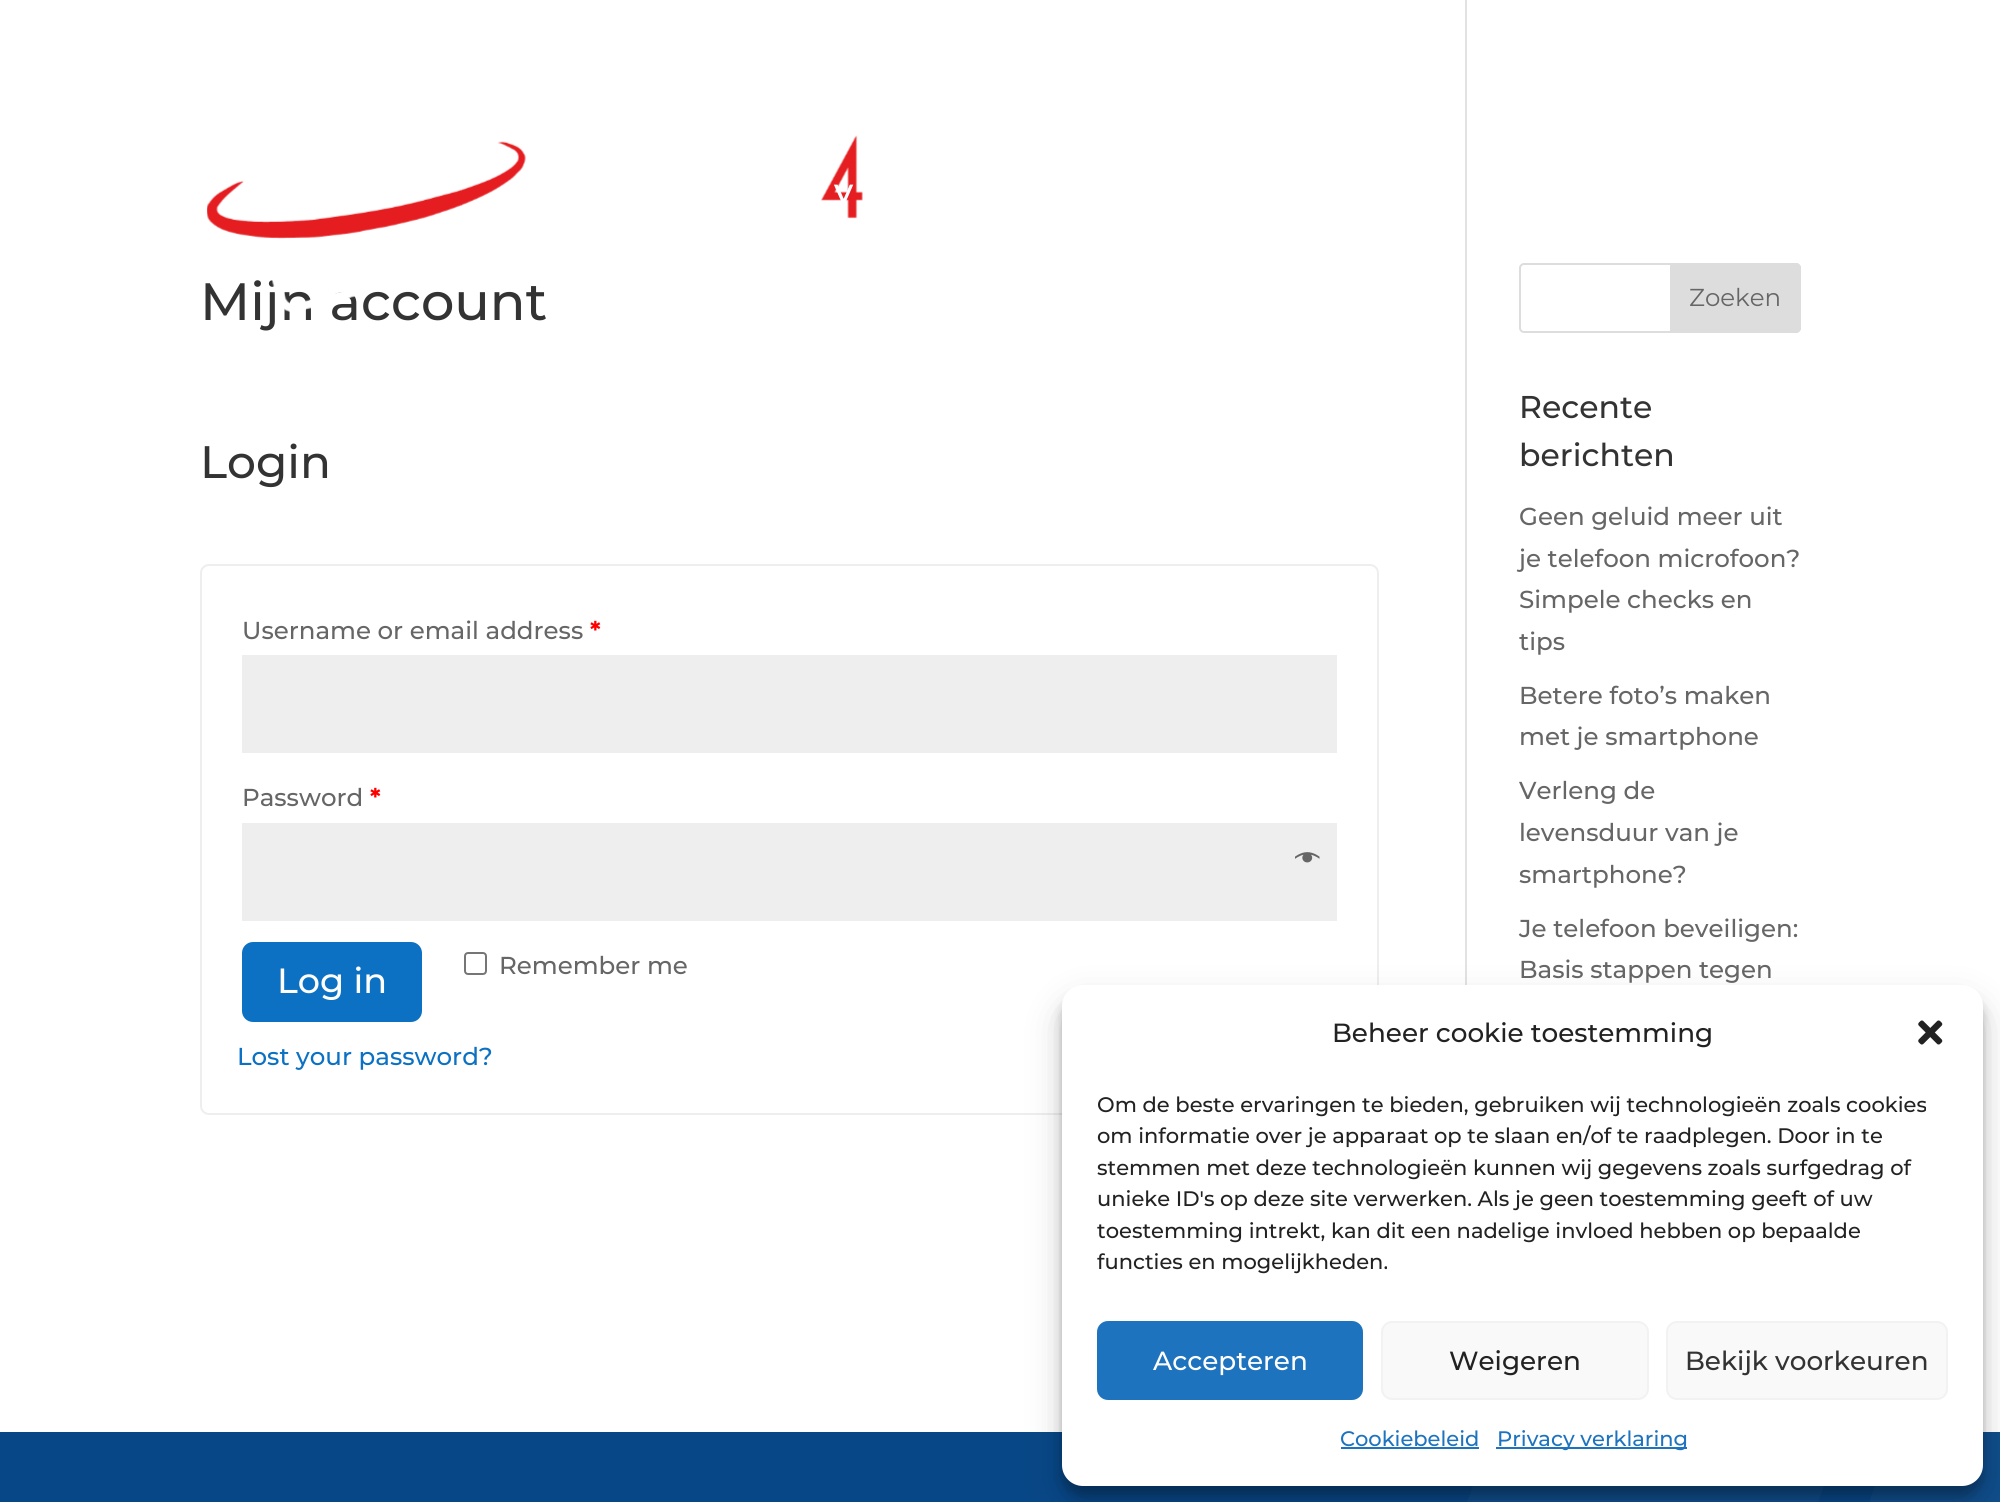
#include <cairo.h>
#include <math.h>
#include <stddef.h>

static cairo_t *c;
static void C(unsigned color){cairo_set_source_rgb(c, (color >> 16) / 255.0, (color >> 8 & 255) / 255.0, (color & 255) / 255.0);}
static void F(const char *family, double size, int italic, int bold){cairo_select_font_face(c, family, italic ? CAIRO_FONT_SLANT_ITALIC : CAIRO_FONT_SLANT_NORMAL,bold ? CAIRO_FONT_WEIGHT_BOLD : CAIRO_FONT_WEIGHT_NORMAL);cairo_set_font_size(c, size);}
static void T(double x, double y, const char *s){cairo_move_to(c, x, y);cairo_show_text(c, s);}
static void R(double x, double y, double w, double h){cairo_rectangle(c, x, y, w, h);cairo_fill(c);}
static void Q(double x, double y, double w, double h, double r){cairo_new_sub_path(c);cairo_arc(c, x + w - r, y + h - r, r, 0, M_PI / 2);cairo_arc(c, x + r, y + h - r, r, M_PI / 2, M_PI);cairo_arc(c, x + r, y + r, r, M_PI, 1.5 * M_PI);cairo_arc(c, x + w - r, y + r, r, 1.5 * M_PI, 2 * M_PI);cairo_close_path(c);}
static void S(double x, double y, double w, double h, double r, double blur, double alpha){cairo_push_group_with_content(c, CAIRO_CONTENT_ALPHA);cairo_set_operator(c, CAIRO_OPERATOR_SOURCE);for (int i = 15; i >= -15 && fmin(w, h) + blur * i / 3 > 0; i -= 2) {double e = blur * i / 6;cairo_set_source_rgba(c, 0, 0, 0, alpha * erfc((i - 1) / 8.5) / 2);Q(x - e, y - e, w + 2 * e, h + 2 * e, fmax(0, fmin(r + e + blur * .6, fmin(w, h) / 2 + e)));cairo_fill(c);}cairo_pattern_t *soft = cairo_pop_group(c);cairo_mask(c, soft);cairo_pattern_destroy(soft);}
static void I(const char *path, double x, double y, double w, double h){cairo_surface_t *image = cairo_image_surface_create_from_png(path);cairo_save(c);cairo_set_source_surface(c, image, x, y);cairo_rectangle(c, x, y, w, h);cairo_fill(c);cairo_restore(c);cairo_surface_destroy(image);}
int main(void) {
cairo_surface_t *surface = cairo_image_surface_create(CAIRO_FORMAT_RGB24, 2000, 1502);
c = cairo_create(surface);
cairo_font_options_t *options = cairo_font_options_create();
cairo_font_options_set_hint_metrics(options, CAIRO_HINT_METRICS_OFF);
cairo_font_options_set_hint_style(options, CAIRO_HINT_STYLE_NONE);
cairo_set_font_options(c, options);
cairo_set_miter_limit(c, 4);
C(0xffffff);
cairo_paint(c);
F("Montserrat Medium",52.5,0,0);
C(0x333333);
T(200,320,"Mijn account");
I("1.png",207,135,656,177);
F("Montserrat SemiBold",26.25,0,0);
C(0xffffff);
T(834,203,"V");
C(0xe2e2e2);
R(1465,0,2,985);
F("Montserrat Medium",45.5,0,0);
C(0x333333);
T(200,478,"Login");
Q(201,565,1177,549,8);
C(0xeeeeee);
cairo_stroke(c);
F("Montserrat Medium",24.5,0,0);
C(0x666666);
T(242,639,"Username or email address");
F("Montserrat",24.5,0,1);
C(0xff0000);
T(590,639,"*");
C(0xeeeeee);
R(242,655,1095,98);
F("Montserrat Medium",24.5,0,0);
C(0x666666);
T(242,806,"Password");
F("Montserrat",24.5,0,1);
C(0xff0000);
T(370,806,"*");
C(0xeeeeee);
R(242,823,1095,98);
I("2.png",1295,852,25,11);
C(0x0c71c3);
Q(242,942,180,80,11);
cairo_fill(c);
F("Montserrat Medium",35,0,0);
C(0xffffff);
T(277,993,"Log in");
Q(465,953,21,21,3);
C(0x767676);
cairo_stroke(c);
F("Montserrat Medium",24.5,0,0);
C(0x666666);
T(499,974,"Remember me");
C(0x0c71c3);
T(237,1065,"Lost your password?");
Q(1520,264,280,68,4);
C(0xdddddd);
cairo_stroke(c);
cairo_new_path(c);
cairo_move_to(c,1671,264);
cairo_line_to(c,1796,264);
cairo_curve_to(c,1798,264,1800,266,1800,268);
cairo_line_to(c,1800,328);
cairo_curve_to(c,1800,330,1798,332,1796,332);
cairo_line_to(c,1671,332);
cairo_close_path(c);
cairo_fill_preserve(c);
cairo_stroke(c);
F("Montserrat",24.5,0,0);
C(0x666666);
T(1689,306,"Zoeken");
F("Montserrat Medium",31.5,0,0);
C(0x333333);
T(1519,418,"Recente");
T(1519,466,"berichten");
F("Montserrat Medium",24.5,0,0);
C(0x666666);
T(1519,525,"Geen geluid meer uit");
T(1519,567,"je telefoon microfoon?");
T(1519,608,"Simpele checks en");
T(1519,650,"tips");
T(1519,704,"Betere foto’s maken");
T(1519,745,"met je smartphone");
T(1519,799,"Verleng de");
T(1519,841,"levensduur van je");
T(1519,883,"smartphone?");
T(1519,937,"Je telefoon beveiligen:");
T(1519,978,"Basis stappen tegen");
C(0x084787);
R(0,1432,1875,70);
C(0x0f4d8b);
cairo_new_path(c);
cairo_move_to(c,996,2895);
cairo_line_to(c,1492,1429);
cairo_line_to(c,1843,1429);
cairo_line_to(c,1347,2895);
cairo_close_path(c);
cairo_fill(c);
cairo_save(c);
cairo_rectangle(c,0,1432,2000,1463);
cairo_clip(c);
cairo_new_path(c);
cairo_move_to(c,1397,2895);
cairo_line_to(c,1894,1429);
cairo_line_to(c,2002,1429);
cairo_line_to(c,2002,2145);
cairo_line_to(c,1748,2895);
cairo_close_path(c);
cairo_fill(c);
cairo_restore(c);
C(0x000000);
S(1062,996,921,500,21,5,.23);
S(1062,1003,921,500,21,17.5,.19);
C(0xffffff);
Q(1062,985,921,501,21);
cairo_fill(c);
F("Montserrat Medium",26.25,0,0);
C(0x222222);
T(1332,1042,"Beheer cookie toestemming");
I("3.png",1918,1020,25,25);
F("Montserrat Medium",21,0,0);
T(1097,1112,"Om de beste ervaringen te bieden, gebruiken wij technologieën zoals cookies");
T(1097,1143,"om informatie over je apparaat op te slaan en/of te raadplegen. Door in te");
T(1097,1175,"stemmen met deze technologieën kunnen wij gegevens zoals surfgedrag of");
T(1097,1206,"unieke ID's op deze site verwerken. Als je geen toestemming geeft of uw");
T(1097,1238,"toestemming intrekt, kan dit een nadelige invloed hebben op bepaalde");
T(1097,1269,"functies en mogelijkheden.");
C(0x1e73be);
Q(1098,1322,264,77,10);
cairo_fill_preserve(c);
cairo_stroke(c);
F("Montserrat Medium",26.25,0,0);
C(0xffffff);
T(1153,1370,"Accepteren");
C(0xf9f9f9);
Q(1382,1322,266,77,10);
cairo_fill_preserve(c);
C(0xf2f2f2);
cairo_stroke(c);
C(0x222222);
T(1449,1370,"Weigeren");
C(0xf9f9f9);
Q(1667,1322,280,77,10);
cairo_fill_preserve(c);
C(0xf2f2f2);
cairo_stroke(c);
C(0x333333);
T(1685,1370,"Bekijk voorkeuren");
F("Montserrat Medium",21,0,0);
C(0x1e73be);
T(1340,1446,"Cookiebeleid");
R(1341,1447,138,2);
R(1496,1447,191,2);
T(1497,1446,"Privacy verklaring");
cairo_surface_write_to_png(surface, "o.png");
cairo_font_options_destroy(options);
cairo_destroy(c);
cairo_surface_destroy(surface);
return 0;
}
